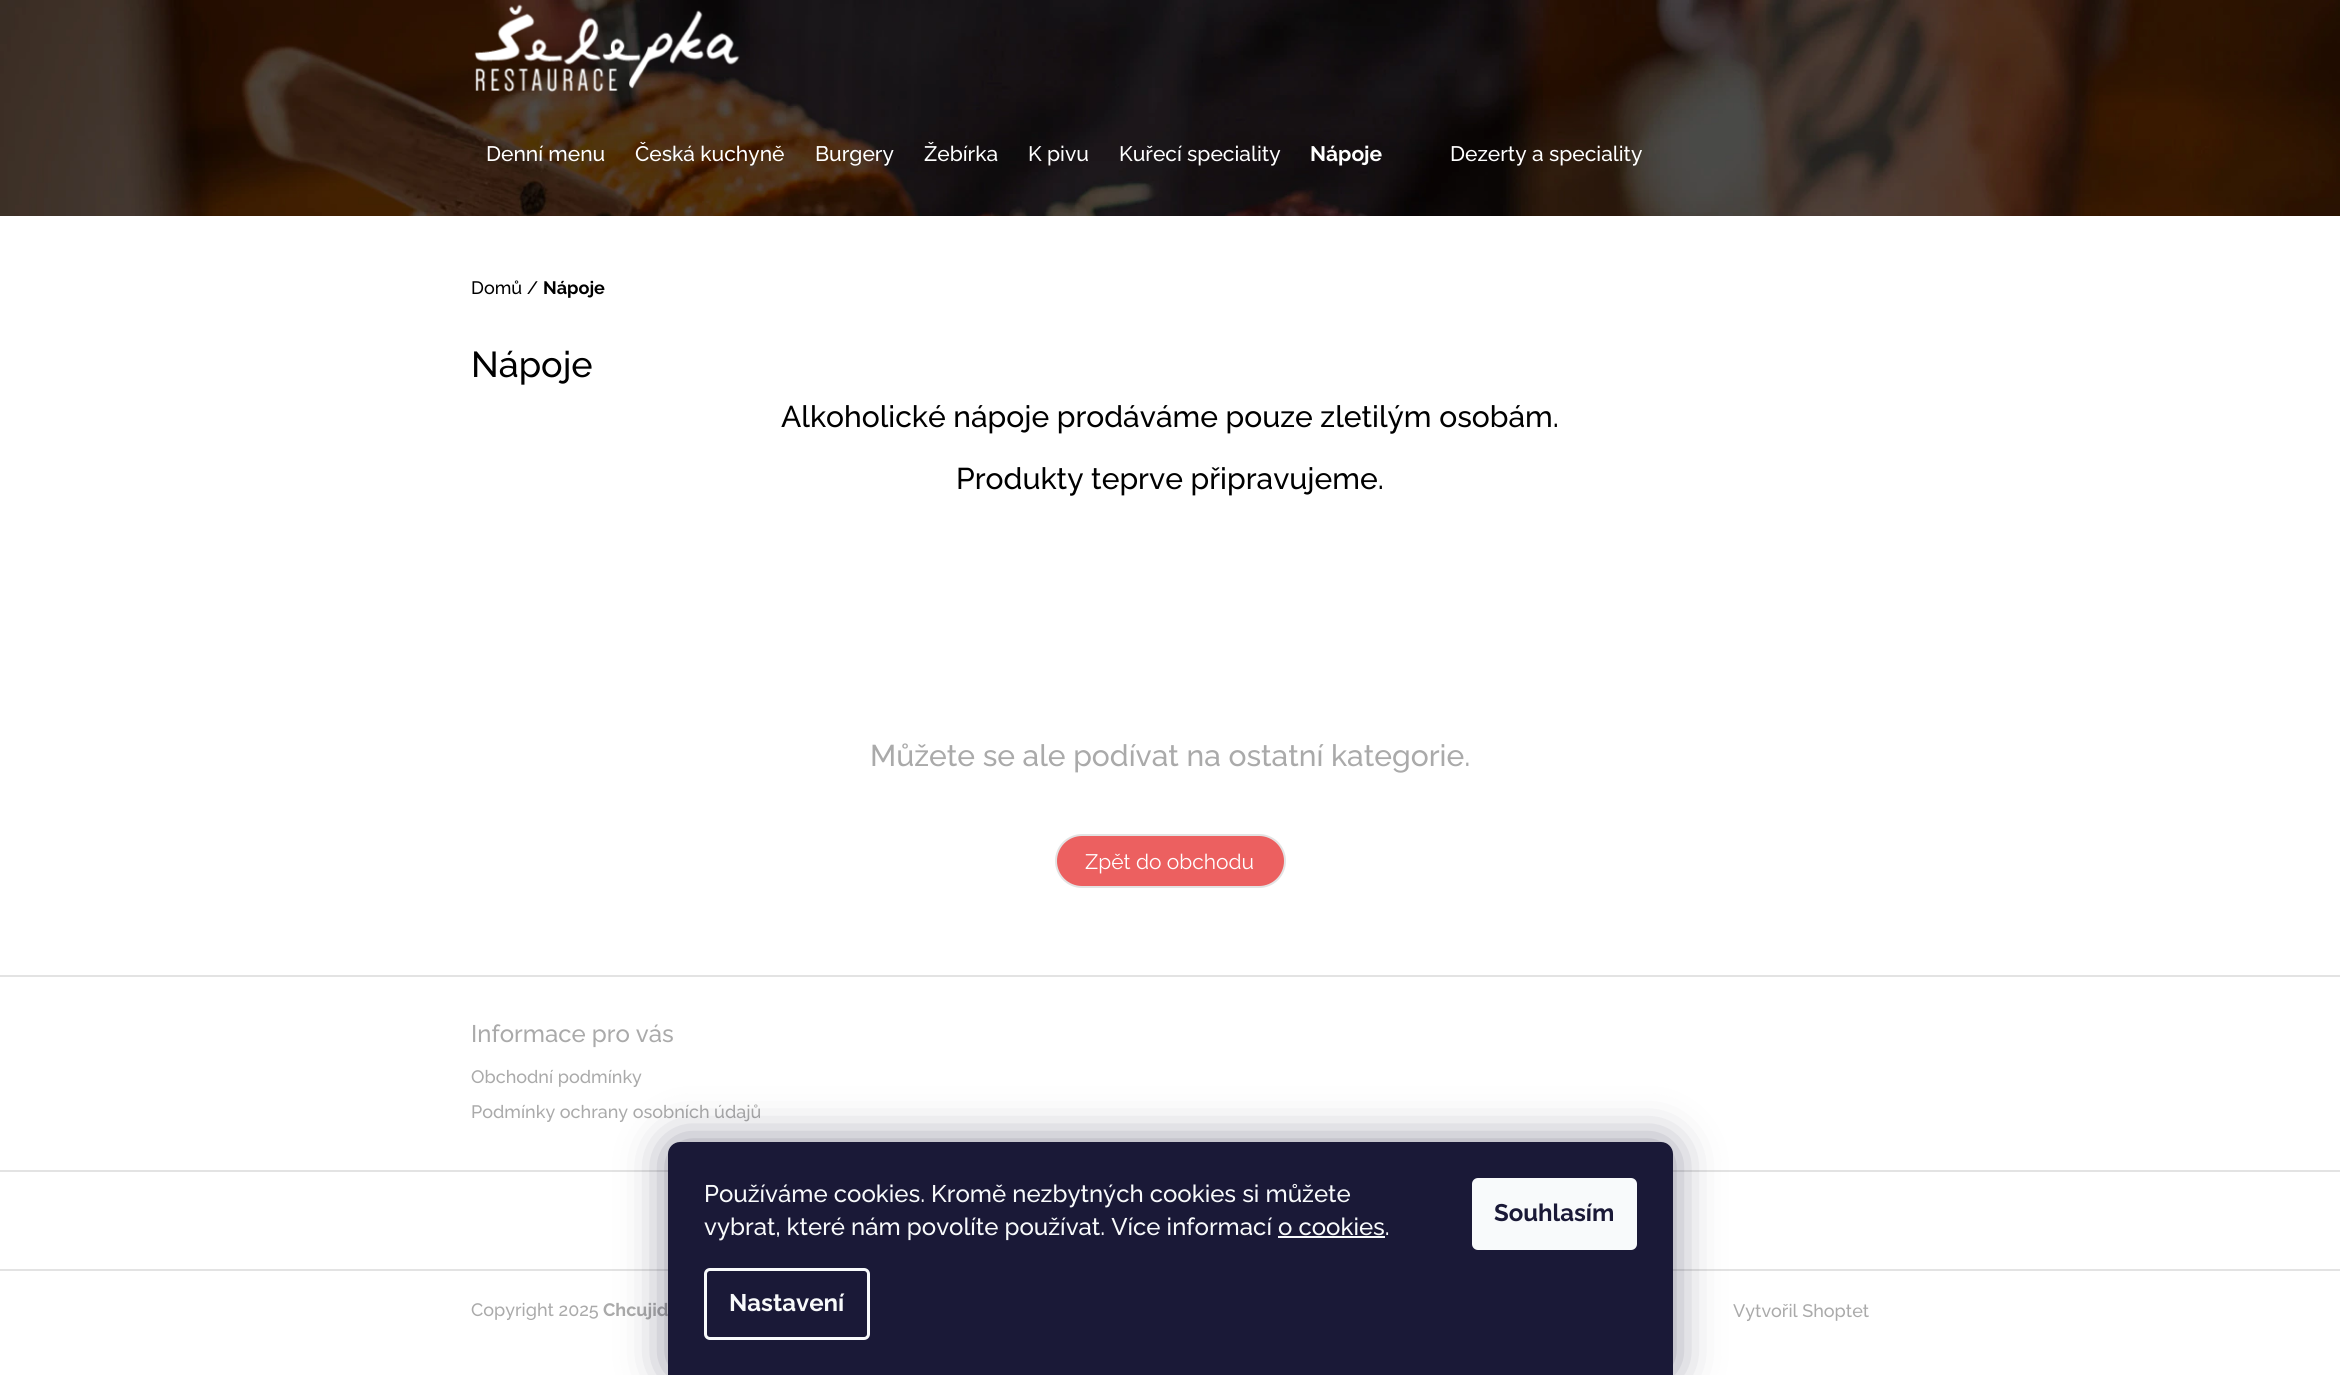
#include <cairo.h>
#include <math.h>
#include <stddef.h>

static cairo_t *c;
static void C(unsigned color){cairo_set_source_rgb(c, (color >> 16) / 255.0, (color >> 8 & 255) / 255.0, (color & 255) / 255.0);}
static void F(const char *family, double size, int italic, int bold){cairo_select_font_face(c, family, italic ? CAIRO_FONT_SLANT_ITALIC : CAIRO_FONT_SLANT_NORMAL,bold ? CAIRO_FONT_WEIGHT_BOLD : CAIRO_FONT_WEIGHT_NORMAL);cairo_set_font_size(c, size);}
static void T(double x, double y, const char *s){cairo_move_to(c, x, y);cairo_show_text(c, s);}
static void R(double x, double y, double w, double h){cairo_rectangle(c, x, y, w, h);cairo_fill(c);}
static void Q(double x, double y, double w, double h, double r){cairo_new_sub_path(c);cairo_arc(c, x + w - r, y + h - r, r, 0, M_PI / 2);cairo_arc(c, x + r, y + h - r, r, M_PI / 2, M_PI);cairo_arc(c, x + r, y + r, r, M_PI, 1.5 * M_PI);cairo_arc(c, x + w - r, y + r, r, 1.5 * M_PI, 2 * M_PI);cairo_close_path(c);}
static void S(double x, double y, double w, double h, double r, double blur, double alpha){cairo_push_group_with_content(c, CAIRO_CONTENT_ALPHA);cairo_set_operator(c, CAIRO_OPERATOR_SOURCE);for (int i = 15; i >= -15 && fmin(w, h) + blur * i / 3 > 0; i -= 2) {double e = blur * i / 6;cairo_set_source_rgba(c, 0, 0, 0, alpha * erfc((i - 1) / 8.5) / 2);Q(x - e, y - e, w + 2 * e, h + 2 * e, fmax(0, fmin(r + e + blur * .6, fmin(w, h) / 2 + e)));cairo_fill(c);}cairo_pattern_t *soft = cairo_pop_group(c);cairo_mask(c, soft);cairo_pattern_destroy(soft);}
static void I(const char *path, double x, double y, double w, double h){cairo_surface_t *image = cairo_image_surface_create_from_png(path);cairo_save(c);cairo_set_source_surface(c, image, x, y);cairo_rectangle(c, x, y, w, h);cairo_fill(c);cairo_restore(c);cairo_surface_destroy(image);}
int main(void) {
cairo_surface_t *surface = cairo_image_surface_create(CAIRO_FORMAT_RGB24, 2340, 1375);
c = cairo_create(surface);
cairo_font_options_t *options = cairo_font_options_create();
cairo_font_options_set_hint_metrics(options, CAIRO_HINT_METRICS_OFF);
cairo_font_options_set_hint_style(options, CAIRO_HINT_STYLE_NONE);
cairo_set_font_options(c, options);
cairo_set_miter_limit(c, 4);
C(0xffffff);
cairo_paint(c);
I("1.png",0,0,2340,216);
I("2.png",474,4,266,88);
F("Raleway Medium",21,0,0);
C(0xffffff);
T(486,161,"Denní menu");
T(635,161,"Česká kuchyně");
T(815,161,"Burgery");
T(924,161,"Žebírka");
T(1028,161,"K pivu");
T(1119,161,"Kuřecí speciality");
F("Raleway",21,0,1);
T(1310,161,"Nápoje");
F("Raleway Medium",21,0,0);
T(1450,161,"Dezerty a speciality");
F("Raleway Medium",18,0,0);
C(0x000000);
T(471,294,"Domů /");
F("Raleway",18,0,1);
T(543,294,"Nápoje");
F("Raleway Medium",36,0,0);
T(471,377,"Nápoje");
F("Raleway Medium",30,0,0);
T(781,427,"Alkoholické nápoje prodáváme pouze zletilým osobám.");
T(956,489,"Produkty teprve připravujeme.");
C(0xaaaaaa);
T(870,766,"Můžete se ale podívat na ostatní kategorie.");
C(0xec6060);
Q(1056,835,229,52,26);
cairo_fill_preserve(c);
C(0xe3e3e3);
cairo_stroke(c);
F("Raleway",21,0,0);
C(0xffffff);
T(1085,869,"Zpět do obchodu");
C(0xe3e3e3);
R(0,975,2340,2);
F("Raleway Medium",24,0,0);
C(0xaaaaaa);
T(471,1042,"Informace pro vás");
F("Raleway Medium",18,0,0);
T(471,1083,"Obchodní podmínky");
T(471,1118,"Podmínky ochrany osobních údajů");
C(0xe3e3e3);
R(0,1170,2340,2);
R(0,1269,2340,2);
C(0xaaaaaa);
T(471,1316,"Copyright 2025");
F("Raleway",18,0,1);
T(603,1316,"Chcujid");
F("Raleway Medium",18,0,0);
T(1733,1317,"Vytvořil Shoptet");
C(0x1b1939);
S(668,1142,1005,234,12,22.5,.5);
C(0x1a1937);
cairo_new_path(c);
cairo_move_to(c,680,1142);
cairo_line_to(c,1661,1142);
cairo_curve_to(c,1667.5,1142,1673,1147.5,1673,1154);
cairo_line_to(c,1673,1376);
cairo_line_to(c,668,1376);
cairo_line_to(c,668,1154);
cairo_curve_to(c,668,1147.5,673.5,1142,680,1142);
cairo_close_path(c);
cairo_fill(c);
F("Raleway Medium",24,0,0);
C(0xf8fafb);
T(704,1202,"Používáme cookies. Kromě nezbytných cookies si můžete");
T(704,1235,"vybrat, které nám povolíte používat. Více informací o cookies.");
R(1278,1236,107,2);
Q(705.5,1269.5,163,69,4.5);
cairo_set_line_width(c,3);
cairo_stroke(c);
F("Raleway",24,0,1);
T(729,1311,"Nastavení");
Q(1472,1178,165,72,6);
cairo_fill(c);
C(0x1a1937);
T(1494,1221,"Souhlasím");
cairo_surface_write_to_png(surface, "o.png");
cairo_font_options_destroy(options);
cairo_destroy(c);
cairo_surface_destroy(surface);
return 0;
}
